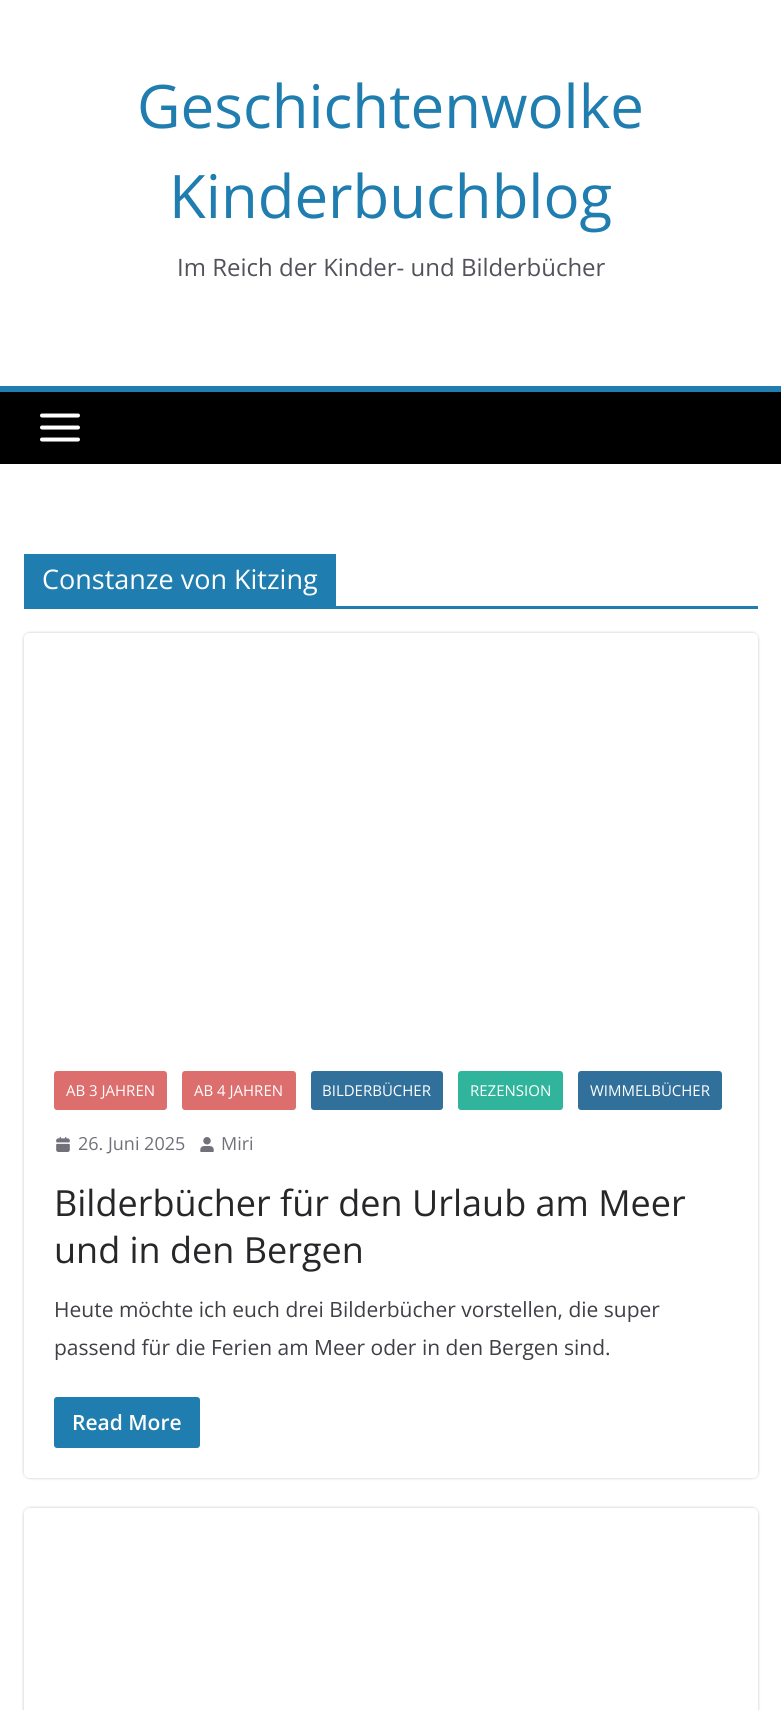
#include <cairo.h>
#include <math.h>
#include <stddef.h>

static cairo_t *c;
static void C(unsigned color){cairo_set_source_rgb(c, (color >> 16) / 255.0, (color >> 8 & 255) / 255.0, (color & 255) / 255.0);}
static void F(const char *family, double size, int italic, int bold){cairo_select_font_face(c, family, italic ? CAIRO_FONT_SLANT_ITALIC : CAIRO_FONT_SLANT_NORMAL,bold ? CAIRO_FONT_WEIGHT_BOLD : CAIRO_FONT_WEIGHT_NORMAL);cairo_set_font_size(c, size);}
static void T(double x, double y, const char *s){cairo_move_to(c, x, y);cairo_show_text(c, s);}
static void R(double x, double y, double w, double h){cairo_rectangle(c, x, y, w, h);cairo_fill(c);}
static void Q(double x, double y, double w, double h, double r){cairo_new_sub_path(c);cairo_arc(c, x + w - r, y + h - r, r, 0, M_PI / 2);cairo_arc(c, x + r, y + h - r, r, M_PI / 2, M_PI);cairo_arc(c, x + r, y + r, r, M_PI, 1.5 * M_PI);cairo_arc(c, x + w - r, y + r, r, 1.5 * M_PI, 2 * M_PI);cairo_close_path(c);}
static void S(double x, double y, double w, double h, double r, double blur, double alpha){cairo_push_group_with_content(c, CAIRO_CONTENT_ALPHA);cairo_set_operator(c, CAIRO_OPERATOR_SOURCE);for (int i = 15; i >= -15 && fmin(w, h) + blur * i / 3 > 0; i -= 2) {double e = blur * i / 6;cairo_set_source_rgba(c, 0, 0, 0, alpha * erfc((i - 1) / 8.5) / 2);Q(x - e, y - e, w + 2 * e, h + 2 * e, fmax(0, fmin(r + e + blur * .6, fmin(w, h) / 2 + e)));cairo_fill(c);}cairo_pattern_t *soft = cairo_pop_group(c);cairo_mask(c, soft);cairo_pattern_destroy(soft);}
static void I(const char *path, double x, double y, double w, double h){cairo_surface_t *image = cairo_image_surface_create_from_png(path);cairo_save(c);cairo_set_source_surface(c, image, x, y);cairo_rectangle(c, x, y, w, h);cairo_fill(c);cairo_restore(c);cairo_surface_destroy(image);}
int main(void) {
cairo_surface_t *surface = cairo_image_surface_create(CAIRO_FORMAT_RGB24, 781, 1710);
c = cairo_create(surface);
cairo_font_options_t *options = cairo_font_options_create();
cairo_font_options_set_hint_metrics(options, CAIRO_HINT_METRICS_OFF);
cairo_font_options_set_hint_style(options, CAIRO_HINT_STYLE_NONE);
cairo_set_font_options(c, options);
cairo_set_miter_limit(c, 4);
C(0xffffff);
cairo_paint(c);
F("Open Sans",60,0,0);
C(0x207daf);
T(137,128,"Geschichtenwolke");
T(169,218,"Kinderbuchblog");
F("Open Sans",24,0,0);
C(0x52525b);
T(177,276,"Im Reich der Kinder- und Bilderbücher");
C(0x000000);
R(0,392,781,72);
C(0x207daf);
R(0,386,781,6);
I("1.png",40,413,40,29);
R(24,606,734,3);
R(24,554,312,52);
F("Open Sans",27,0,0);
C(0xffffff);
T(42,589,"Constanze von Kitzing");
cairo_save(c);
cairo_set_fill_rule(c,CAIRO_FILL_RULE_EVEN_ODD);
cairo_new_path(c);
cairo_move_to(c,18,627);
cairo_line_to(c,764,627);
cairo_line_to(c,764,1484);
cairo_line_to(c,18,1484);
cairo_close_path(c);
cairo_move_to(c,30,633);
cairo_line_to(c,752,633);
cairo_curve_to(c,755.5,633,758,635.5,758,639);
cairo_line_to(c,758,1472);
cairo_curve_to(c,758,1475.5,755.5,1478,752,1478);
cairo_line_to(c,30,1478);
cairo_curve_to(c,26.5,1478,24,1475.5,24,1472);
cairo_line_to(c,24,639);
cairo_curve_to(c,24,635.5,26.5,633,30,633);
cairo_close_path(c);
cairo_clip(c);
C(0x000000);
S(24,633,734,845,6,1.5,.24);
cairo_restore(c);
C(0xdd6e6e);
Q(54,1071,113,39,3);
cairo_fill(c);
F("Open Sans",15,0,0);
C(0xffffff);
T(66,1096,"AB 3 JAHREN");
C(0xdd6e6e);
Q(182,1071,114,39,3);
cairo_fill(c);
C(0xffffff);
T(194,1096,"AB 4 JAHREN");
C(0x30709b);
Q(311,1071,132,39,3);
cairo_fill(c);
C(0xffffff);
T(322,1096,"BILDERBÜCHER");
C(0x30b59c);
Q(458,1071,105,39,3);
cairo_fill(c);
C(0xffffff);
T(470,1096,"REZENSION");
C(0x30709b);
Q(578,1071,144,39,3);
cairo_fill(c);
C(0xffffff);
T(590,1096,"WIMMELBÜCHER");
I("2.png",56,1137,14,15);
F("Open Sans",18,0,0);
C(0x71717a);
T(78,1150,"26. Juni 2025");
I("3.png",200,1137,14,15);
T(221,1150,"Miri");
F("Open Sans",36,0,0);
C(0x27272a);
T(54,1216,"Bilderbücher für den Urlaub am Meer");
T(54,1263,"und in den Bergen");
F("Open Sans",21,0,0);
C(0x3f3f46);
T(54,1317,"Heute möchte ich euch drei Bilderbücher vorstellen, die super");
T(54,1355,"passend für die Ferien am Meer oder in den Bergen sind.");
C(0x207daf);
Q(54,1397,146,51,3);
cairo_fill(c);
F("Open Sans SemiBold",21,0,0);
C(0xffffff);
T(72,1430,"Read More");
cairo_save(c);
cairo_set_fill_rule(c,CAIRO_FILL_RULE_EVEN_ODD);
cairo_new_path(c);
cairo_move_to(c,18,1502);
cairo_line_to(c,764,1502);
cairo_line_to(c,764,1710);
cairo_line_to(c,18,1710);
cairo_close_path(c);
cairo_move_to(c,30,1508);
cairo_line_to(c,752,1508);
cairo_curve_to(c,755.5,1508,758,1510.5,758,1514);
cairo_line_to(c,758,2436);
cairo_curve_to(c,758,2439.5,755.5,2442,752,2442);
cairo_line_to(c,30,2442);
cairo_curve_to(c,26.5,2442,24,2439.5,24,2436);
cairo_line_to(c,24,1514);
cairo_curve_to(c,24,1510.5,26.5,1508,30,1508);
cairo_close_path(c);
cairo_clip(c);
C(0x000000);
S(24,1508,734,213,6,1.5,.24);
cairo_restore(c);
cairo_surface_write_to_png(surface, "o.png");
cairo_font_options_destroy(options);
cairo_destroy(c);
cairo_surface_destroy(surface);
return 0;
}
